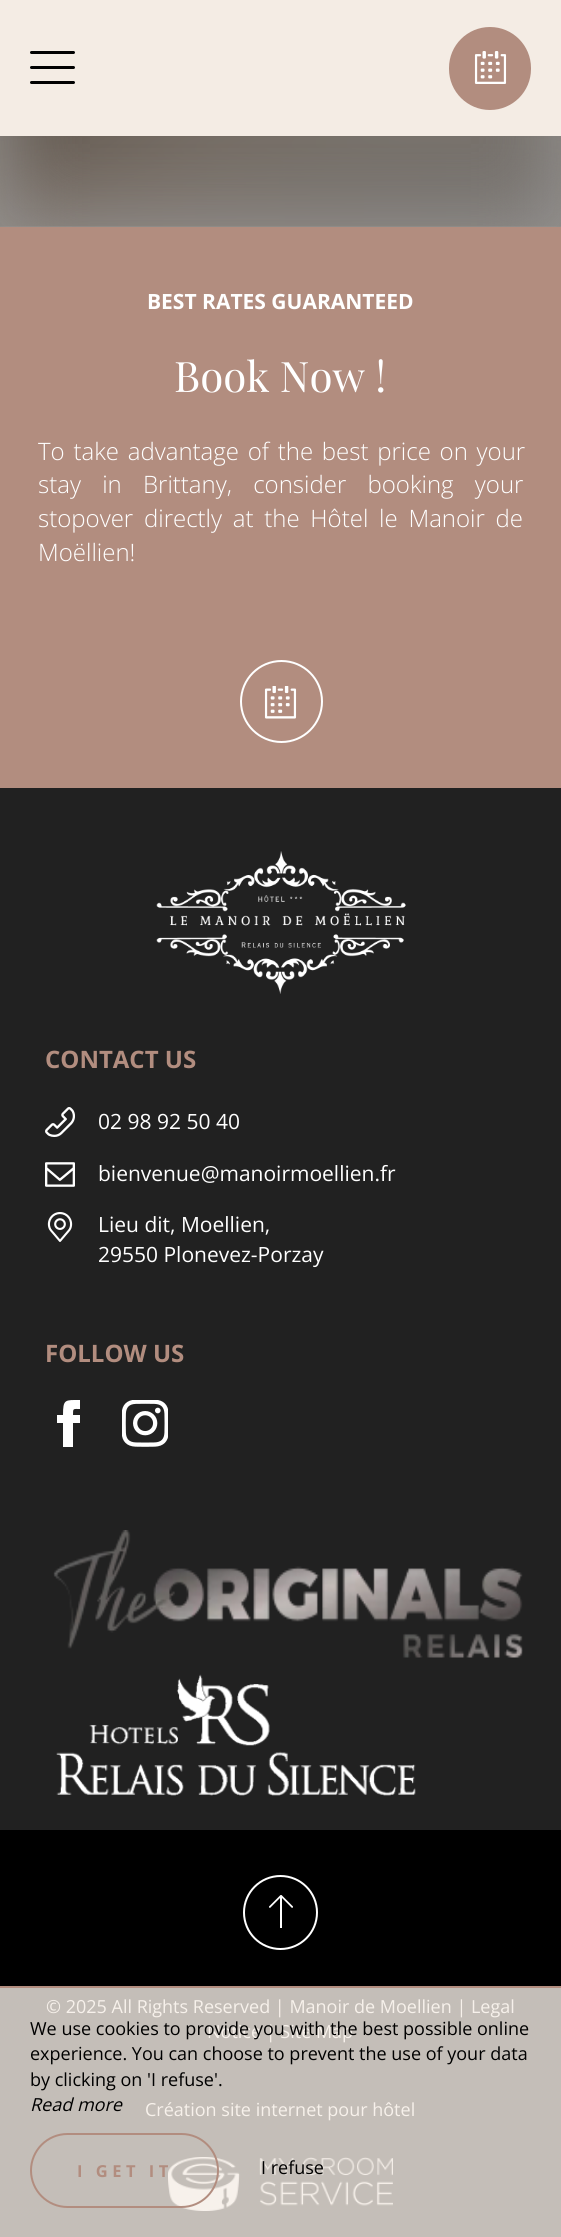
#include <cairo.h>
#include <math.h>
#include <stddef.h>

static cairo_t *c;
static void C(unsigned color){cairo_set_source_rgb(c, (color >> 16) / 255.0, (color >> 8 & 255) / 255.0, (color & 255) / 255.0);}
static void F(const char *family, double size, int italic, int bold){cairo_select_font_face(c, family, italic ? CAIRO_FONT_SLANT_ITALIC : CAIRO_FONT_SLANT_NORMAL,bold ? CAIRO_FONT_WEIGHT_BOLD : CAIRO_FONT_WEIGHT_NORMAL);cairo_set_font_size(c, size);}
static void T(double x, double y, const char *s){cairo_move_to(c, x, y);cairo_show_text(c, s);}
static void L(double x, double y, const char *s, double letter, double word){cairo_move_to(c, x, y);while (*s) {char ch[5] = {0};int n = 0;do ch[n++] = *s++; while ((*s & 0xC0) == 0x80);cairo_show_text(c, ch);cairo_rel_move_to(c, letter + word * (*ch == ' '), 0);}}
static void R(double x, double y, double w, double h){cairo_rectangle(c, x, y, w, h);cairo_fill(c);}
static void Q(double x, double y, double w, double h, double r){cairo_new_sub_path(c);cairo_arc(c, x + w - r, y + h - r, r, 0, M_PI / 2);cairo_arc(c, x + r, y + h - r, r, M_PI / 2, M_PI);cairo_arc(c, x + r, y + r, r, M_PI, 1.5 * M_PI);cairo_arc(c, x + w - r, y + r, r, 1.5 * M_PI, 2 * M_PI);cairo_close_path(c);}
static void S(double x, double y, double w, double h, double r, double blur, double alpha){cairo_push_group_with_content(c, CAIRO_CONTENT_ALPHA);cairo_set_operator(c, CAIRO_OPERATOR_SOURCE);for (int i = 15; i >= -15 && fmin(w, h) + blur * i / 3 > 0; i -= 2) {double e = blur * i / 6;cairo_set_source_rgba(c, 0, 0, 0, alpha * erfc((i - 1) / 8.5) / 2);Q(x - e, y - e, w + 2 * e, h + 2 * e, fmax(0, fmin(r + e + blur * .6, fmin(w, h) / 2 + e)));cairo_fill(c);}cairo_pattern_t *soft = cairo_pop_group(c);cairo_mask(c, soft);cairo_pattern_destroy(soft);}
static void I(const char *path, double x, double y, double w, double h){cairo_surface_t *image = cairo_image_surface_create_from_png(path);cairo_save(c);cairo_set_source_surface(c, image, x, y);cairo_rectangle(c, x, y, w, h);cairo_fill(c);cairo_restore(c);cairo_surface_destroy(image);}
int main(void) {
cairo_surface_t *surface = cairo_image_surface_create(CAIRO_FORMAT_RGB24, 561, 2237);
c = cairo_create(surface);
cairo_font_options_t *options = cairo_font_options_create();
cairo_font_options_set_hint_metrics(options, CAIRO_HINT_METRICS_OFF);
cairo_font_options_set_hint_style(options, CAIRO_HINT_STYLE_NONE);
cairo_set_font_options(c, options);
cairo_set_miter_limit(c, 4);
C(0x928e89);
cairo_paint(c);
C(0x999999);
S(0,-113,561,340,0,37.5,1);
I("1.png",0,136,561,91);
C(0xf4ece4);
R(0,0,561,136);
C(0x000000);
Q(30,51,45,3,1.5);
cairo_fill(c);
Q(30,66,45,3,1.5);
cairo_fill(c);
Q(30,81,45,3,1.5);
cairo_fill(c);
C(0xb28d7f);
Q(449,27,82,83,41);
cairo_fill(c);
I("2.png",474,51,33,33);
C(0x212121);
R(0,788,561,1042);
C(0xb28d7f);
R(0,227,561,561);
F("Open Sans",21,0,1);
C(0xffffff);
T(147,309,"BEST RATES GUARANTEED");
F("Playfair Display",42,0,0);
T(174,392,"Book Now !");
F("Open Sans Light",24,0,0);
L(38,460,"To take advantage of the best price on your",0,2.5);
L(38,493,"stay in Brittany, consider booking your",0,15);
L(38,527,"stopover directly at the Hôtel le Manoir de",0,4.5);
T(38,561,"Moëllien!");
cairo_new_path(c);
cairo_arc(c,281.5,701.5,40.5,0,2 * M_PI);
cairo_stroke(c);
I("3.png",264,686,33,33);
I("4.png",156,851,250,143);
F("Open Sans",24,0,1);
C(0xb28d7f);
T(45,1068,"CONTACT US");
I("5.png",45,1107,30,30);
F("Open Sans",21,0,0);
C(0xffffff);
T(98,1129,"02 98 92 50 40");
I("6.png",45,1162,30,25);
T(98,1181,"bienvenue@manoirmoellien.fr");
I("7.png",47,1212,26,30);
T(98,1232,"Lieu dit, Moellien,");
T(98,1262,"29550 Plonevez-Porzay");
F("Open Sans",24,0,1);
C(0xb28d7f);
T(45,1362,"FOLLOW US");
C(0xffffff);
cairo_new_path(c);
cairo_move_to(c,63,1415);
cairo_line_to(c,57,1415);
cairo_line_to(c,57,1423);
cairo_line_to(c,63,1423);
cairo_line_to(c,63,1447);
cairo_line_to(c,73,1447);
cairo_line_to(c,73,1423);
cairo_line_to(c,80,1423);
cairo_line_to(c,80,1415);
cairo_line_to(c,73,1415);
cairo_curve_to(c,73,1408,73,1409,80,1409);
cairo_line_to(c,80,1400);
cairo_curve_to(c,65,1400,63,1399,63,1415);
cairo_close_path(c);
cairo_fill(c);
I("8.png",122,1400,46,47);
I("9.png",53,1530,470,128);
I("10.png",56,1674,360,122);
C(0x000000);
R(0,1830,561,156);
C(0xc4beb8);
R(0,1988,561,249);
cairo_arc(c,280.5,1912.5,36.5,0,2 * M_PI);
C(0xffffff);
cairo_stroke(c);
cairo_save(c);
cairo_rectangle(c,269,1895,24,34);
cairo_clip(c);
cairo_new_path(c);
cairo_move_to(c,270,1908);
cairo_line_to(c,268.5,1907);
cairo_line_to(c,281,1894.5);
cairo_line_to(c,293.5,1907);
cairo_line_to(c,292,1908);
cairo_line_to(c,281,1897);
cairo_close_path(c);
cairo_fill(c);
cairo_restore(c);
R(280,1896,2,32);
F("Open Sans",18,0,0);
C(0xf7f1eb);
T(46,2013,"© 2025 All Rights Reserved | Manoir de Moellien | Legal");
T(207,2038,"Notice | Site Map");
T(145,2116,"Création site internet pour hôtel");
I("11.png",168,2157,225,54);
C(0xb28d7f);
R(0,1986,561,2);
C(0x000000);
T(30,2035,"We use cookies to provide you with the best possible online");
T(30,2060,"experience. You can choose to prevent the use of your data");
T(30,2086,"by clicking on 'I refuse'.");
F("Open Sans",18,1,0);
T(30,2111,"Read more");
Q(31,2134,187,73,36.5);
C(0xb28d7f);
cairo_stroke(c);
F("Open Sans",16.5,0,1);
L(77,2177,"I GET IT",4.5,0);
F("Open Sans",18,0,0);
C(0x000000);
T(261,2174,"I refuse");
cairo_surface_write_to_png(surface, "o.png");
cairo_font_options_destroy(options);
cairo_destroy(c);
cairo_surface_destroy(surface);
return 0;
}
